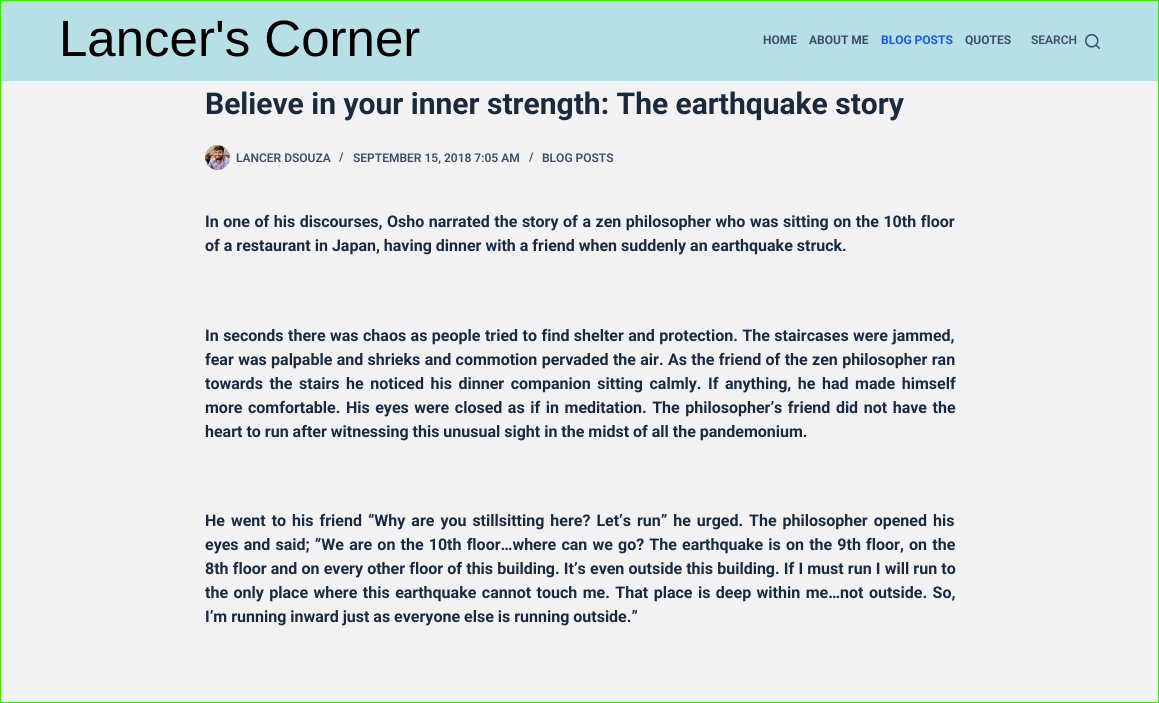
#include <cairo.h>
#include <math.h>
#include <stddef.h>

static cairo_t *c;
static void C(unsigned color){cairo_set_source_rgb(c, (color >> 16) / 255.0, (color >> 8 & 255) / 255.0, (color & 255) / 255.0);}
static void F(const char *family, double size, int italic, int bold){cairo_select_font_face(c, family, italic ? CAIRO_FONT_SLANT_ITALIC : CAIRO_FONT_SLANT_NORMAL,bold ? CAIRO_FONT_WEIGHT_BOLD : CAIRO_FONT_WEIGHT_NORMAL);cairo_set_font_size(c, size);}
static void T(double x, double y, const char *s){cairo_move_to(c, x, y);cairo_show_text(c, s);}
static void L(double x, double y, const char *s, double letter, double word){cairo_move_to(c, x, y);while (*s) {char ch[5] = {0};int n = 0;do ch[n++] = *s++; while ((*s & 0xC0) == 0x80);cairo_show_text(c, ch);cairo_rel_move_to(c, letter + word * (*ch == ' '), 0);}}
static void R(double x, double y, double w, double h){cairo_rectangle(c, x, y, w, h);cairo_fill(c);}
static void I(const char *path, double x, double y, double w, double h){cairo_surface_t *image = cairo_image_surface_create_from_png(path);cairo_save(c);cairo_set_source_surface(c, image, x, y);cairo_rectangle(c, x, y, w, h);cairo_fill(c);cairo_restore(c);cairo_surface_destroy(image);}
int main(void) {
cairo_surface_t *surface = cairo_image_surface_create(CAIRO_FORMAT_RGB24, 1159, 703);
c = cairo_create(surface);
cairo_font_options_t *options = cairo_font_options_create();
cairo_font_options_set_hint_metrics(options, CAIRO_HINT_METRICS_OFF);
cairo_font_options_set_hint_style(options, CAIRO_HINT_STYLE_NONE);
cairo_set_font_options(c, options);
cairo_set_miter_limit(c, 4);
C(0xf2f2f2);
cairo_paint(c);
cairo_rectangle(c,.5,.5,1158,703);
C(0x3ee700);
cairo_set_line_width(c,1);
cairo_stroke(c);
C(0xb6e0e5);
R(1,1,1157,80);
F("Liberation Sans",51,0,0);
C(0x000001);
T(59,56,"Lancer's Corner");
F("Roboto",12,0,1);
C(0x3a4f66);
T(763,44,"HOME");
T(809,44,"ABOUT ME");
C(0x1559ed);
T(881,44,"BLOG POSTS");
C(0x3a4f66);
T(965,44,"QUOTES");
F("Roboto SemiBold",12,0,0);
T(1031,44,"SEARCH");
I("1.png",1085,34,15,15);
F("Roboto",30,0,1);
C(0x192a3d);
T(205,114,"Believe in your inner strength: The earthquake story");
I("2.png",205,145,25,25);
F("Roboto SemiBold",12,0,0);
C(0x3a4f66);
T(236,162,"LANCER DSOUZA");
T(339,161,"/");
T(353,162,"SEPTEMBER 15, 2018 7:05 AM");
T(529,161,"/");
T(542,162,"BLOG POSTS");
F("Roboto",16,0,1);
C(0x192a3d);
L(205,227,"In one of his discourses, Osho narrated the story of a zen philosopher who was sitting on the 10th floor",0,.6);
T(205,251,"of a restaurant in Japan, having dinner with a friend when suddenly an earthquake struck.");
L(205,341,"In seconds there was chaos as people tried to find shelter and protection. The staircases were jammed,",0,.5);
L(205,365,"fear was palpable and shrieks and commotion pervaded the air. As the friend of the zen philosopher ran",0,.4);
L(205,389,"towards the stairs he noticed his dinner companion sitting calmly. If anything, he had made himself",0,2.6);
L(205,413,"more comfortable. His eyes were closed as if in meditation. The philosopher’s friend did not have the",0,1.6);
T(205,437,"heart to run after witnessing this unusual sight in the midst of all the pandemonium.");
L(205,526,"He went to his friend “Why are you stillsitting here? Let’s run” he urged. The philosopher opened his",0,2);
L(205,550,"eyes and said; “We are on the 10th floor…where can we go? The earthquake is on the 9th floor, on the",0,1.2);
L(205,574,"8th floor and on every other floor of this building. It’s even outside this building. If I must run I will run to",0,.2);
L(205,598,"the only place where this earthquake cannot touch me. That place is deep within me…not outside. So,",0,1.5);
T(205,622,"I’m running inward just as everyone else is running outside.”");
C(0x3ee700);
R(0,702,1159,1);
cairo_surface_write_to_png(surface, "o.png");
cairo_font_options_destroy(options);
cairo_destroy(c);
cairo_surface_destroy(surface);
return 0;
}
